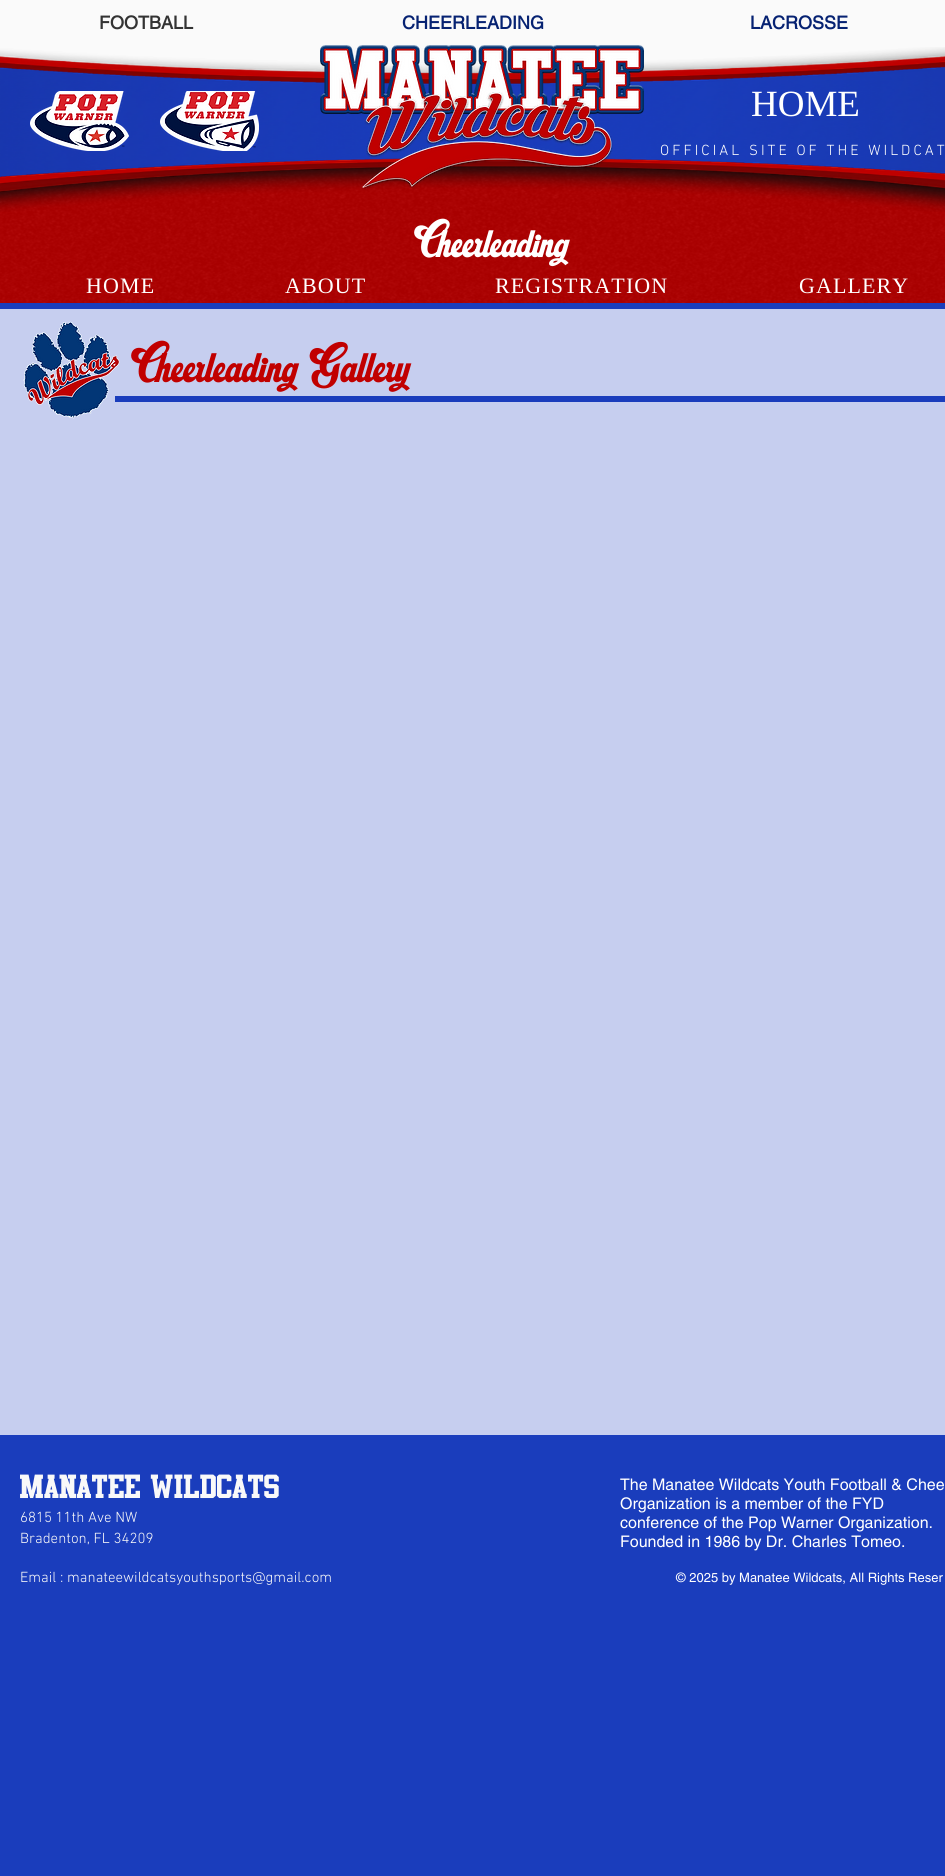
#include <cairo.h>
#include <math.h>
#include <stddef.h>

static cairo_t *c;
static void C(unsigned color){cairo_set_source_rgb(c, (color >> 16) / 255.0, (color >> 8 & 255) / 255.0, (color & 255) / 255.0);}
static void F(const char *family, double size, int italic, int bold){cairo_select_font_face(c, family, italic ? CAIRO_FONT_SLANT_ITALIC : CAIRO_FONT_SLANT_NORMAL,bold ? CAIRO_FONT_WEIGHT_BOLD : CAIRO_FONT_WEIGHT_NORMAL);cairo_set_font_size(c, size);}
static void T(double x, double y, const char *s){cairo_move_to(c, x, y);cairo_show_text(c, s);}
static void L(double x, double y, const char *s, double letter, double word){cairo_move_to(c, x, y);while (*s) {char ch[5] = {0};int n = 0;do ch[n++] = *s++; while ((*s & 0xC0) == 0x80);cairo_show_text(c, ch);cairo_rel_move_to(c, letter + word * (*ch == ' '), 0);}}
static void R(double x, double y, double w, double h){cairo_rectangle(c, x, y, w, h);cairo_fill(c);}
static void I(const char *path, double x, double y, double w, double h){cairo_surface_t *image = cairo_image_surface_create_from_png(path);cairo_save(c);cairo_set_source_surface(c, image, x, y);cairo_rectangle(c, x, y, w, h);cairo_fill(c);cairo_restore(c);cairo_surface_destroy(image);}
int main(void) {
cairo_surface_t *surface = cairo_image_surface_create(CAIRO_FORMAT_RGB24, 945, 1876);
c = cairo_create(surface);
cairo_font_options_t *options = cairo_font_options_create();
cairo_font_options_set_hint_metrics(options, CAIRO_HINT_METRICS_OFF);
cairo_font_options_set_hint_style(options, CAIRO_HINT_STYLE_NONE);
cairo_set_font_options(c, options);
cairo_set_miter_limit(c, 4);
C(0x1a3dbc);
cairo_paint(c);
C(0xfafafa);
R(0,0,945,75);
F("helvetica",18,0,1);
C(0x333333);
T(99,29,"FOOTBALL");
C(0x062272);
T(402,29,"CHEERLEADING");
T(750,29,"LACROSSE");
C(0xc10000);
R(0,164,945,139);
I("6.png",0,164,945,139);
I("2.png",0,47,945,165);
I("1.png",320,45,324,69);
I("3.png",30,91,99,60);
I("4.png",160,91,99,60);
I("5.png",361,92,252,98);
F("Liberation Serif",37,0,0);
C(0xffffff);
T(751,116,"HOME");
F("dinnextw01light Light",15,0,0);
L(660,155,"OFFICIAL SITE OF THE WILDCAT",3,0);
F("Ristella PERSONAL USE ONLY",51,0,0);
T(414,257,"Cheerleading");
F("Liberation Serif",22,0,0);
L(86,293,"HOME",1.1,0);
L(285,293,"ABOUT",1.1,0);
L(495,293,"REGISTRATION",1.1,0);
L(799,293,"GALLERY",1.1,0);
C(0xc6ceef);
R(0,309,945,1126);
I("7.png",23,321,97,98);
F("Ristella PERSONAL USE ONLY",55,0,0);
C(0xc10000);
T(131,382,"Cheerleading Gallery");
C(0x1a3dbc);
R(115,396,830,6);
F("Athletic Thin",29,0,0);
C(0xf9f9f9);
T(20,1498,"Manatee Wildcats");
F("dinnextw01light Light",15,0,0);
T(20,1522,"6815 11th Ave NW");
T(20,1543,"Bradenton, FL 34209");
T(20,1582,"Email : manateewildcatsyouthsports@gmail.com");
F("helvetica",16,0,0);
C(0xffffff);
T(620,1490,"The Manatee Wildcats Youth Football & Chee");
T(620,1509,"Organization is a member of the FYD");
T(620,1528,"conference of the Pop Warner Organization.");
T(620,1547,"Founded in 1986 by Dr. Charles Tomeo.");
F("helvetica",13,0,0);
T(676,1582,"© 2025 by Manatee Wildcats, All Rights Reser");
cairo_surface_write_to_png(surface, "o.png");
cairo_font_options_destroy(options);
cairo_destroy(c);
cairo_surface_destroy(surface);
return 0;
}
